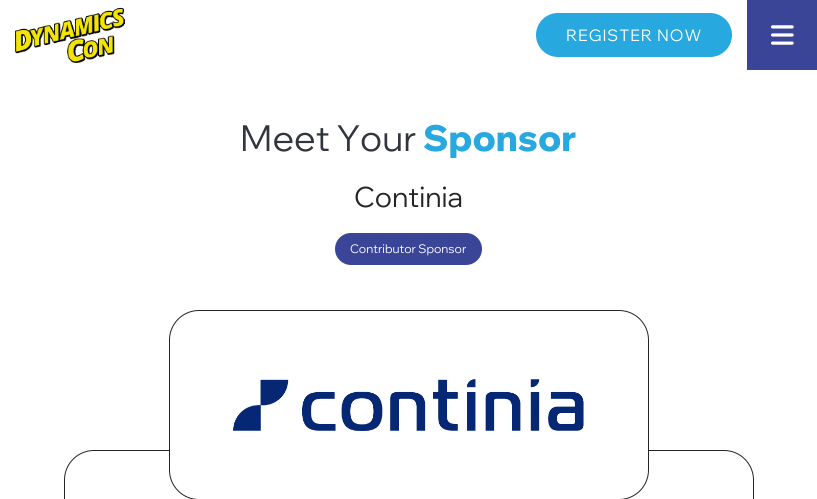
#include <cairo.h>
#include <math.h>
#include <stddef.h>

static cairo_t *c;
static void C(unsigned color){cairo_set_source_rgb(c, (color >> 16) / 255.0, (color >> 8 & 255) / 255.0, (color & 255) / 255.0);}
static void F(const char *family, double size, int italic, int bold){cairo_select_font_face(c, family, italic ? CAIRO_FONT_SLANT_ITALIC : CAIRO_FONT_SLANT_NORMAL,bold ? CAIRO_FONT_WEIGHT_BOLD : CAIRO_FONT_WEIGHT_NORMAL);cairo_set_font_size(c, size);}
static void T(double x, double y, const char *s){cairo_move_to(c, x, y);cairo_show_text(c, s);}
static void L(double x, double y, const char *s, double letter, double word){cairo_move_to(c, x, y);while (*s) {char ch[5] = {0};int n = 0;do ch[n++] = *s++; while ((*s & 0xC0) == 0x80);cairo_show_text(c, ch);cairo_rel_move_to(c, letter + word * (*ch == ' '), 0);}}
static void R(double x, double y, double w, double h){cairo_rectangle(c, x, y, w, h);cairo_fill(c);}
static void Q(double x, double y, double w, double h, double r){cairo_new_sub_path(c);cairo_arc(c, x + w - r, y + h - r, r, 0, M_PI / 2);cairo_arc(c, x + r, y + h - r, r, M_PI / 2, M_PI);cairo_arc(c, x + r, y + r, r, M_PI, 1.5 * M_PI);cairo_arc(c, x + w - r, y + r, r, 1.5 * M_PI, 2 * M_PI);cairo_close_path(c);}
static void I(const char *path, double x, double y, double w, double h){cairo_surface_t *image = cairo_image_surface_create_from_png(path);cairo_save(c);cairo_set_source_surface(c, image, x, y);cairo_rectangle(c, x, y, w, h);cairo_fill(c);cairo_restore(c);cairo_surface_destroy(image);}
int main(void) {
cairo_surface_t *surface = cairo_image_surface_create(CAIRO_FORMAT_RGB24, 817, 499);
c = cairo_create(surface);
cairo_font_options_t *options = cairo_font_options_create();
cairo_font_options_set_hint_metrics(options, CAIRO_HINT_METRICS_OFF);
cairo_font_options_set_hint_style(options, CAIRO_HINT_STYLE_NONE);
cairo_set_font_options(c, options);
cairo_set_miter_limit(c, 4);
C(0xffffff);
cairo_paint(c);
I("1.png",15,7,110,56);
C(0x27a8df);
Q(536,13,196,44,22);
cairo_fill(c);
F("Wix Madefor Display",16,0,0);
C(0xffffff);
L(566,41,"REGISTER NOW",1,0);
C(0x3b4598);
R(747,0,70,70);
I("2.png",771,25,23,20);
F("Wix Madefor Display",36,0,0);
C(0x32353e);
T(240,151,"Meet Your");
F("Wix Madefor Display ExtraBold",36,0,0);
C(0x27a8df);
T(423,151,"Sponsor");
F("Wix Madefor Display",28,0,0);
C(0x242424);
T(354,207,"Continia");
C(0x3b4598);
Q(335,233,147,32,16);
cairo_fill(c);
F("Wix Madefor Display",12,0,0);
C(0xffffff);
T(350,253,"Contributor Sponsor");
Q(64.5,450.5,689,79,29.5);
C(0x242424);
cairo_set_line_width(c,1);
cairo_stroke(c);
C(0xffffff);
Q(169.5,310.5,479,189,29.5);
cairo_fill_preserve(c);
C(0x242424);
cairo_stroke(c);
I("3.png",233,379,351,52);
cairo_surface_write_to_png(surface, "o.png");
cairo_font_options_destroy(options);
cairo_destroy(c);
cairo_surface_destroy(surface);
return 0;
}
